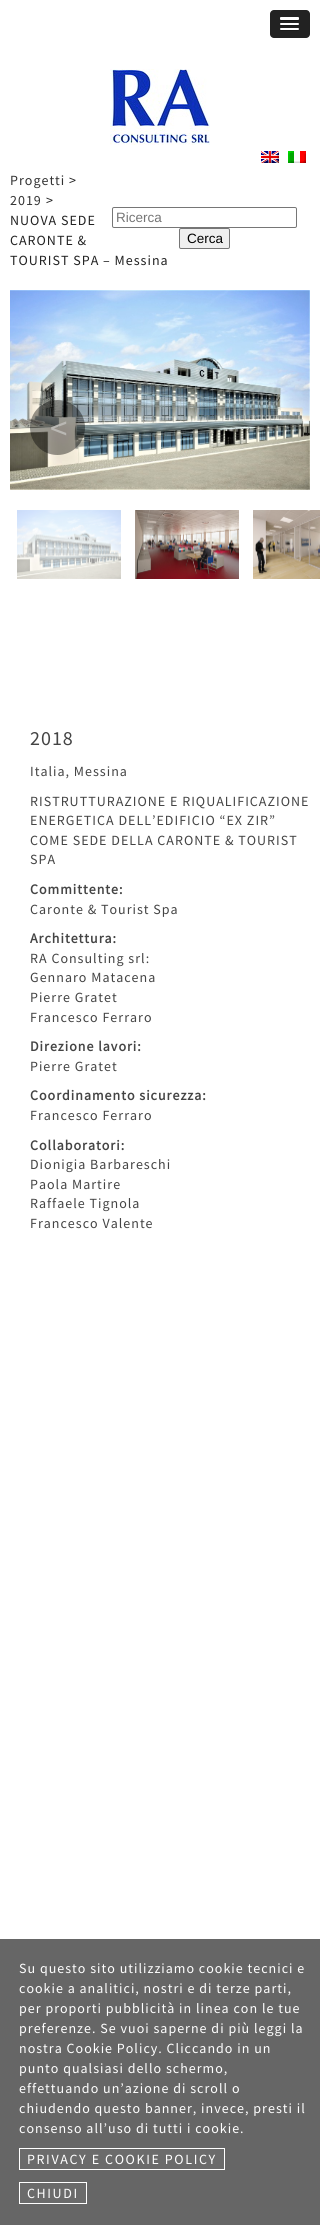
#include <cairo.h>
#include <math.h>
#include <stddef.h>

static cairo_t *c;
static void C(unsigned color){cairo_set_source_rgb(c, (color >> 16) / 255.0, (color >> 8 & 255) / 255.0, (color & 255) / 255.0);}
static void F(const char *family, double size, int italic, int bold){cairo_select_font_face(c, family, italic ? CAIRO_FONT_SLANT_ITALIC : CAIRO_FONT_SLANT_NORMAL,bold ? CAIRO_FONT_WEIGHT_BOLD : CAIRO_FONT_WEIGHT_NORMAL);cairo_set_font_size(c, size);}
static void T(double x, double y, const char *s){cairo_move_to(c, x, y);cairo_show_text(c, s);}
static void L(double x, double y, const char *s, double letter, double word){cairo_move_to(c, x, y);while (*s) {char ch[5] = {0};int n = 0;do ch[n++] = *s++; while ((*s & 0xC0) == 0x80);cairo_show_text(c, ch);cairo_rel_move_to(c, letter + word * (*ch == ' '), 0);}}
static void R(double x, double y, double w, double h){cairo_rectangle(c, x, y, w, h);cairo_fill(c);}
static void Q(double x, double y, double w, double h, double r){cairo_new_sub_path(c);cairo_arc(c, x + w - r, y + h - r, r, 0, M_PI / 2);cairo_arc(c, x + r, y + h - r, r, M_PI / 2, M_PI);cairo_arc(c, x + r, y + r, r, M_PI, 1.5 * M_PI);cairo_arc(c, x + w - r, y + r, r, 1.5 * M_PI, 2 * M_PI);cairo_close_path(c);}
static void I(const char *path, double x, double y, double w, double h){cairo_surface_t *image = cairo_image_surface_create_from_png(path);cairo_save(c);cairo_set_source_surface(c, image, x, y);cairo_rectangle(c, x, y, w, h);cairo_fill(c);cairo_restore(c);cairo_surface_destroy(image);}
int main(void) {
cairo_surface_t *surface = cairo_image_surface_create(CAIRO_FORMAT_RGB24, 320, 2225);
c = cairo_create(surface);
cairo_font_options_t *options = cairo_font_options_create();
cairo_font_options_set_hint_metrics(options, CAIRO_HINT_METRICS_OFF);
cairo_font_options_set_hint_style(options, CAIRO_HINT_STYLE_NONE);
cairo_set_font_options(c, options);
cairo_set_miter_limit(c, 4);
C(0xffffff);
cairo_paint(c);
C(0x222222);
Q(270,10,40,28,4);
cairo_fill(c);
C(0x1a1a1a);
cairo_new_path(c);
cairo_move_to(c,280,19);
cairo_curve_to(c,280,21.5,281,21,284,21);
cairo_line_to(c,295,21);
cairo_curve_to(c,298,21,299,21.5,299,19);
cairo_curve_to(c,299,19.5,298.5,20,298,20);
cairo_line_to(c,281,20);
cairo_curve_to(c,280.5,20,280,19.5,280,19);
cairo_close_path(c);
cairo_fill(c);
C(0xffffff);
Q(280,17,19,3,1);
cairo_fill(c);
C(0x1a1a1a);
cairo_new_path(c);
cairo_move_to(c,280,24.5);
cairo_curve_to(c,279,26.5,284,26,284,26);
cairo_line_to(c,295,26);
cairo_curve_to(c,295,26,300,26.5,299,24.5);
cairo_line_to(c,298,25);
cairo_line_to(c,281,25);
cairo_close_path(c);
cairo_fill(c);
C(0xffffff);
Q(280,23,19,2,1);
cairo_fill(c);
C(0x1a1a1a);
cairo_new_path(c);
cairo_move_to(c,280,29.5);
cairo_curve_to(c,279,31.5,284,31,284,31);
cairo_line_to(c,295,31);
cairo_curve_to(c,295,31,300,31.5,299,29.5);
cairo_line_to(c,298,30);
cairo_line_to(c,281,30);
cairo_close_path(c);
cairo_fill(c);
C(0xffffff);
Q(280,28,19,2,1);
cairo_fill(c);
F("Source Sans Pro",14,0,0);
C(0x333333);
L(10,185,"Progetti",1,0);
C(0x222222);
L(69,185,">",1,0);
C(0x333333);
L(10,205,"2019",1,0);
C(0x222222);
L(46,205,">",1,0);
L(10,225,"NUOVA SEDE",1,0);
L(10,245,"CARONTE &",1,0);
L(10,265,"TOURIST SPA – Messina",1,0);
I("1.png",10,290,300,200);
cairo_set_source_rgba(c,0,0,0,0.4);
cairo_arc(c,57.5,427.5,27.5,0,2 * M_PI);
cairo_fill(c);
F("Source Sans Pro",35,0,0);
C(0xb9b7b3);
L(50,440,"<",1,0);
I("2.png",17,510,104,69);
I("3.png",135,510,104,69);
I("4.png",253,510,67,69);
F("Source Sans Pro",20,0,0);
C(0x444444);
L(30,745,"2018",1,0);
F("Source Sans Pro",14,0,0);
L(30,776,"Italia, Messina",1,0);
L(30,806,"RISTRUTTURAZIONE E RIQUALIFICAZIONE",1,0);
L(30,825,"ENERGETICA DELL’EDIFICIO “EX ZIR”",1,0);
L(30,845,"COME SEDE DELLA CARONTE & TOURIST",1,0);
L(30,864,"SPA",1,0);
F("Source Sans Pro",14,0,1);
L(30,894,"Committente:",1,0);
F("Source Sans Pro",14,0,0);
L(30,914,"Caronte & Tourist Spa",1,0);
F("Source Sans Pro",14,0,1);
L(30,943,"Architettura:",1,0);
F("Source Sans Pro",14,0,0);
L(30,963,"RA Consulting srl:",1,0);
L(30,982,"Gennaro Matacena",1,0);
L(30,1002,"Pierre Gratet",1,0);
L(30,1022,"Francesco Ferraro",1,0);
F("Source Sans Pro",14,0,1);
L(30,1051,"Direzione lavori:",1,0);
F("Source Sans Pro",14,0,0);
L(30,1071,"Pierre Gratet",1,0);
F("Source Sans Pro",14,0,1);
L(30,1100,"Coordinamento sicurezza:",1,0);
F("Source Sans Pro",14,0,0);
L(30,1120,"Francesco Ferraro",1,0);
F("Source Sans Pro",14,0,1);
L(30,1150,"Collaboratori:",1,0);
F("Source Sans Pro",14,0,0);
L(30,1169,"Dionigia Barbareschi",1,0);
L(30,1189,"Paola Martire",1,0);
L(30,1208,"Raffaele Tignola",1,0);
L(30,1228,"Francesco Valente",1,0);
I("5.png",110,69,100,76);
I("6.png",261,151,18,12);
I("7.png",288,151,18,12);
Q(112.5,207.5,184,20,1.5);
C(0x767676);
cairo_set_line_width(c,1);
cairo_stroke(c);
F("Liberation Sans",13.5,0,0);
C(0x757575);
T(116,222,"Ricerca");
C(0xefefef);
Q(179.5,228.5,50,20,1.5);
cairo_fill_preserve(c);
C(0x767676);
cairo_stroke(c);
C(0x000000);
T(187,243,"Cerca");
C(0x666666);
R(0,1939,320,286);
F("Source Sans Pro",14,0,0);
C(0xffffff);
L(19,1973,"Su questo sito utilizziamo cookie tecnici e",1,0);
L(19,1993,"cookie a analitici, nostri e di terze parti,",1,0);
L(19,2013,"per proporti pubblicità in linea con le tue",1,0);
L(19,2033,"preferenze. Se vuoi saperne di più leggi la",1,0);
L(19,2053,"nostra Cookie Policy. Cliccando in un",1,0);
L(19,2073,"punto qualsiasi dello schermo,",1,0);
L(19,2093,"effettuando un’azione di scroll o",1,0);
L(19,2113,"chiudendo questo banner, invece, presti il",1,0);
L(19,2133,"consenso all’uso di tutti i cookie.",1,0);
C(0x6b6b6b);
cairo_rectangle(c,19.5,2148.5,205,21);
cairo_fill_preserve(c);
C(0xffffff);
cairo_stroke(c);
L(27,2164,"PRIVACY E COOKIE POLICY",1.6,0);
C(0x6b6b6b);
cairo_rectangle(c,19.5,2182.5,67,21);
cairo_fill_preserve(c);
C(0xffffff);
cairo_stroke(c);
L(27,2198,"CHIUDI",1.6,0);
cairo_surface_write_to_png(surface, "o.png");
cairo_font_options_destroy(options);
cairo_destroy(c);
cairo_surface_destroy(surface);
return 0;
}
